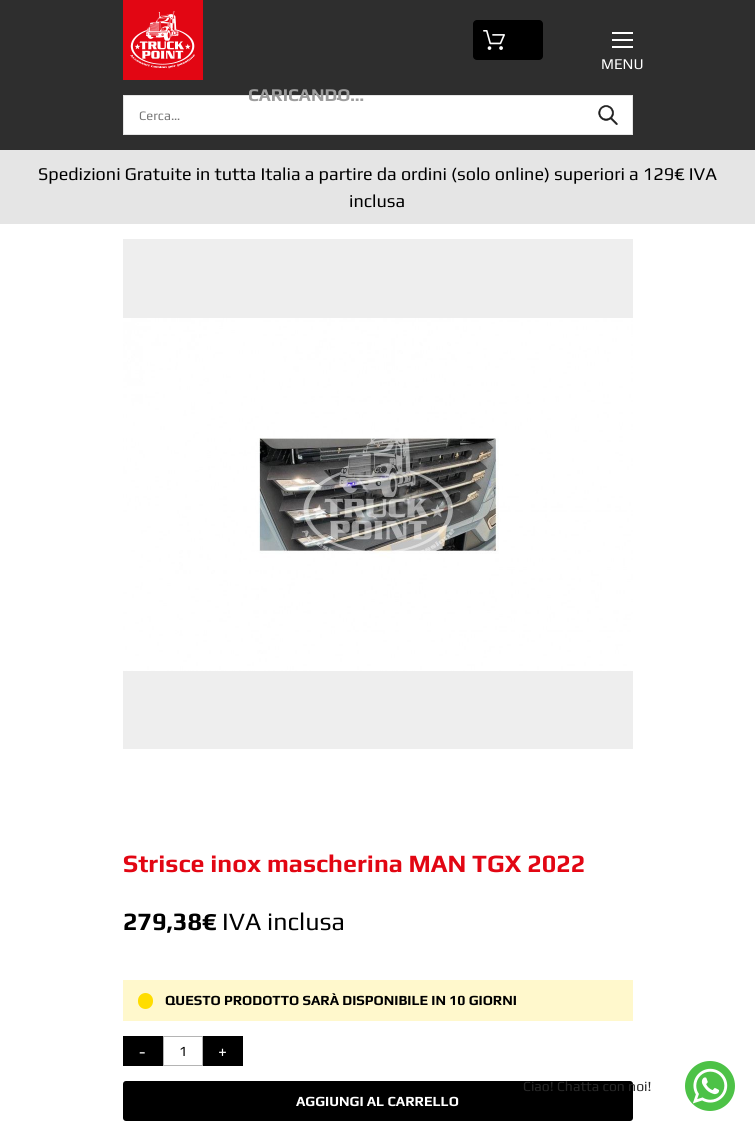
#include <cairo.h>
#include <math.h>
#include <stddef.h>

static cairo_t *c;
static void C(unsigned color){cairo_set_source_rgb(c, (color >> 16) / 255.0, (color >> 8 & 255) / 255.0, (color & 255) / 255.0);}
static void F(const char *family, double size, int italic, int bold){cairo_select_font_face(c, family, italic ? CAIRO_FONT_SLANT_ITALIC : CAIRO_FONT_SLANT_NORMAL,bold ? CAIRO_FONT_WEIGHT_BOLD : CAIRO_FONT_WEIGHT_NORMAL);cairo_set_font_size(c, size);}
static void T(double x, double y, const char *s){cairo_move_to(c, x, y);cairo_show_text(c, s);}
static void R(double x, double y, double w, double h){cairo_rectangle(c, x, y, w, h);cairo_fill(c);}
static void Q(double x, double y, double w, double h, double r){cairo_new_sub_path(c);cairo_arc(c, x + w - r, y + h - r, r, 0, M_PI / 2);cairo_arc(c, x + r, y + h - r, r, M_PI / 2, M_PI);cairo_arc(c, x + r, y + r, r, M_PI, 1.5 * M_PI);cairo_arc(c, x + w - r, y + r, r, 1.5 * M_PI, 2 * M_PI);cairo_close_path(c);}
static void I(const char *path, double x, double y, double w, double h){cairo_surface_t *image = cairo_image_surface_create_from_png(path);cairo_save(c);cairo_set_source_surface(c, image, x, y);cairo_rectangle(c, x, y, w, h);cairo_fill(c);cairo_restore(c);cairo_surface_destroy(image);}
int main(void) {
cairo_surface_t *surface = cairo_image_surface_create(CAIRO_FORMAT_RGB24, 755, 1131);
c = cairo_create(surface);
cairo_font_options_t *options = cairo_font_options_create();
cairo_font_options_set_hint_metrics(options, CAIRO_HINT_METRICS_OFF);
cairo_font_options_set_hint_style(options, CAIRO_HINT_STYLE_NONE);
cairo_set_font_options(c, options);
cairo_set_miter_limit(c, 4);
C(0xffffff);
cairo_paint(c);
C(0x2e2e2e);
R(0,0,755,150);
C(0xe20613);
R(123,0,80,80);
I("1.png",130,11,65,58);
C(0xffffff);
R(612,32,21,2);
R(612,39,21,2);
R(612,46,21,2);
F("Play",15,0,0);
T(601,69,"MENU");
C(0x000000);
Q(473,20,70,40,4);
cairo_fill(c);
I("2.png",483,30,22,20);
C(0xffffff);
cairo_rectangle(c,123.5,95.5,509,39);
cairo_fill_preserve(c);
C(0xe5e5e5);
cairo_set_line_width(c,1);
cairo_stroke(c);
F("Play",18,0,1);
C(0x9d9d9d);
T(248,101,"CARICANDO…");
F("Play",16,0,1);
T(336,100,".");
F("Play",13,0,0);
C(0x757575);
T(139,120,"Cerca…");
I("3.png",598,105,20,20);
C(0xe5e5e5);
R(0,150,755,74);
F("Play",18,0,0);
C(0x000000);
T(38,180,"Spedizioni Gratuite in tutta Italia a partire da ordini (solo online) superiori a 129€ IVA");
T(349,207,"inclusa");
C(0xeeeeee);
R(123,239,510,510);
I("4.png",123,318,510,353);
F("Play",25,0,1);
C(0xe20613);
T(123,872,"Strisce inox mascherina MAN TGX 2022");
C(0x000000);
T(123,930,"279,38€");
F("Play",25,0,0);
T(222,930,"IVA inclusa");
C(0xfff8cc);
R(123,980,510,41);
C(0xffdd00);
Q(138,993,15,16,7.5);
cairo_fill(c);
F("Play",14,0,1);
C(0x000000);
T(165,1005,"QUESTO PRODOTTO SARÀ DISPONIBILE IN 10 GIORNI");
R(123,1036,40,30);
F("Play",18,0,0);
C(0xffffff);
T(139,1058,"-");
cairo_rectangle(c,163.5,1036.5,39,29);
C(0xb4b4b4);
cairo_stroke(c);
F("Play",14,0,0);
C(0x000000);
T(179,1056,"1");
R(203,1036,40,30);
F("Play",18,0,0);
C(0xffffff);
T(218,1058,"+");
C(0x000000);
Q(124,1082,508,38,2);
cairo_fill_preserve(c);
cairo_set_line_width(c,2);
cairo_stroke(c);
F("Play",14,0,1);
C(0xffffff);
T(296,1106,"AGGIUNGI AL CARRELLO");
C(0x4dc247);
cairo_new_path(c);
cairo_arc(c,710,1086,27.5,0,2 * M_PI);
cairo_fill_preserve(c);
C(0xffffff);
cairo_set_line_width(c,5);
cairo_stroke(c);
F("Play",14,0,0);
C(0x292929);
T(523,1091,"Ciao! Chatta con noi!");
I("5.png",692,1068,36,36);
cairo_surface_write_to_png(surface, "o.png");
cairo_font_options_destroy(options);
cairo_destroy(c);
cairo_surface_destroy(surface);
return 0;
}
